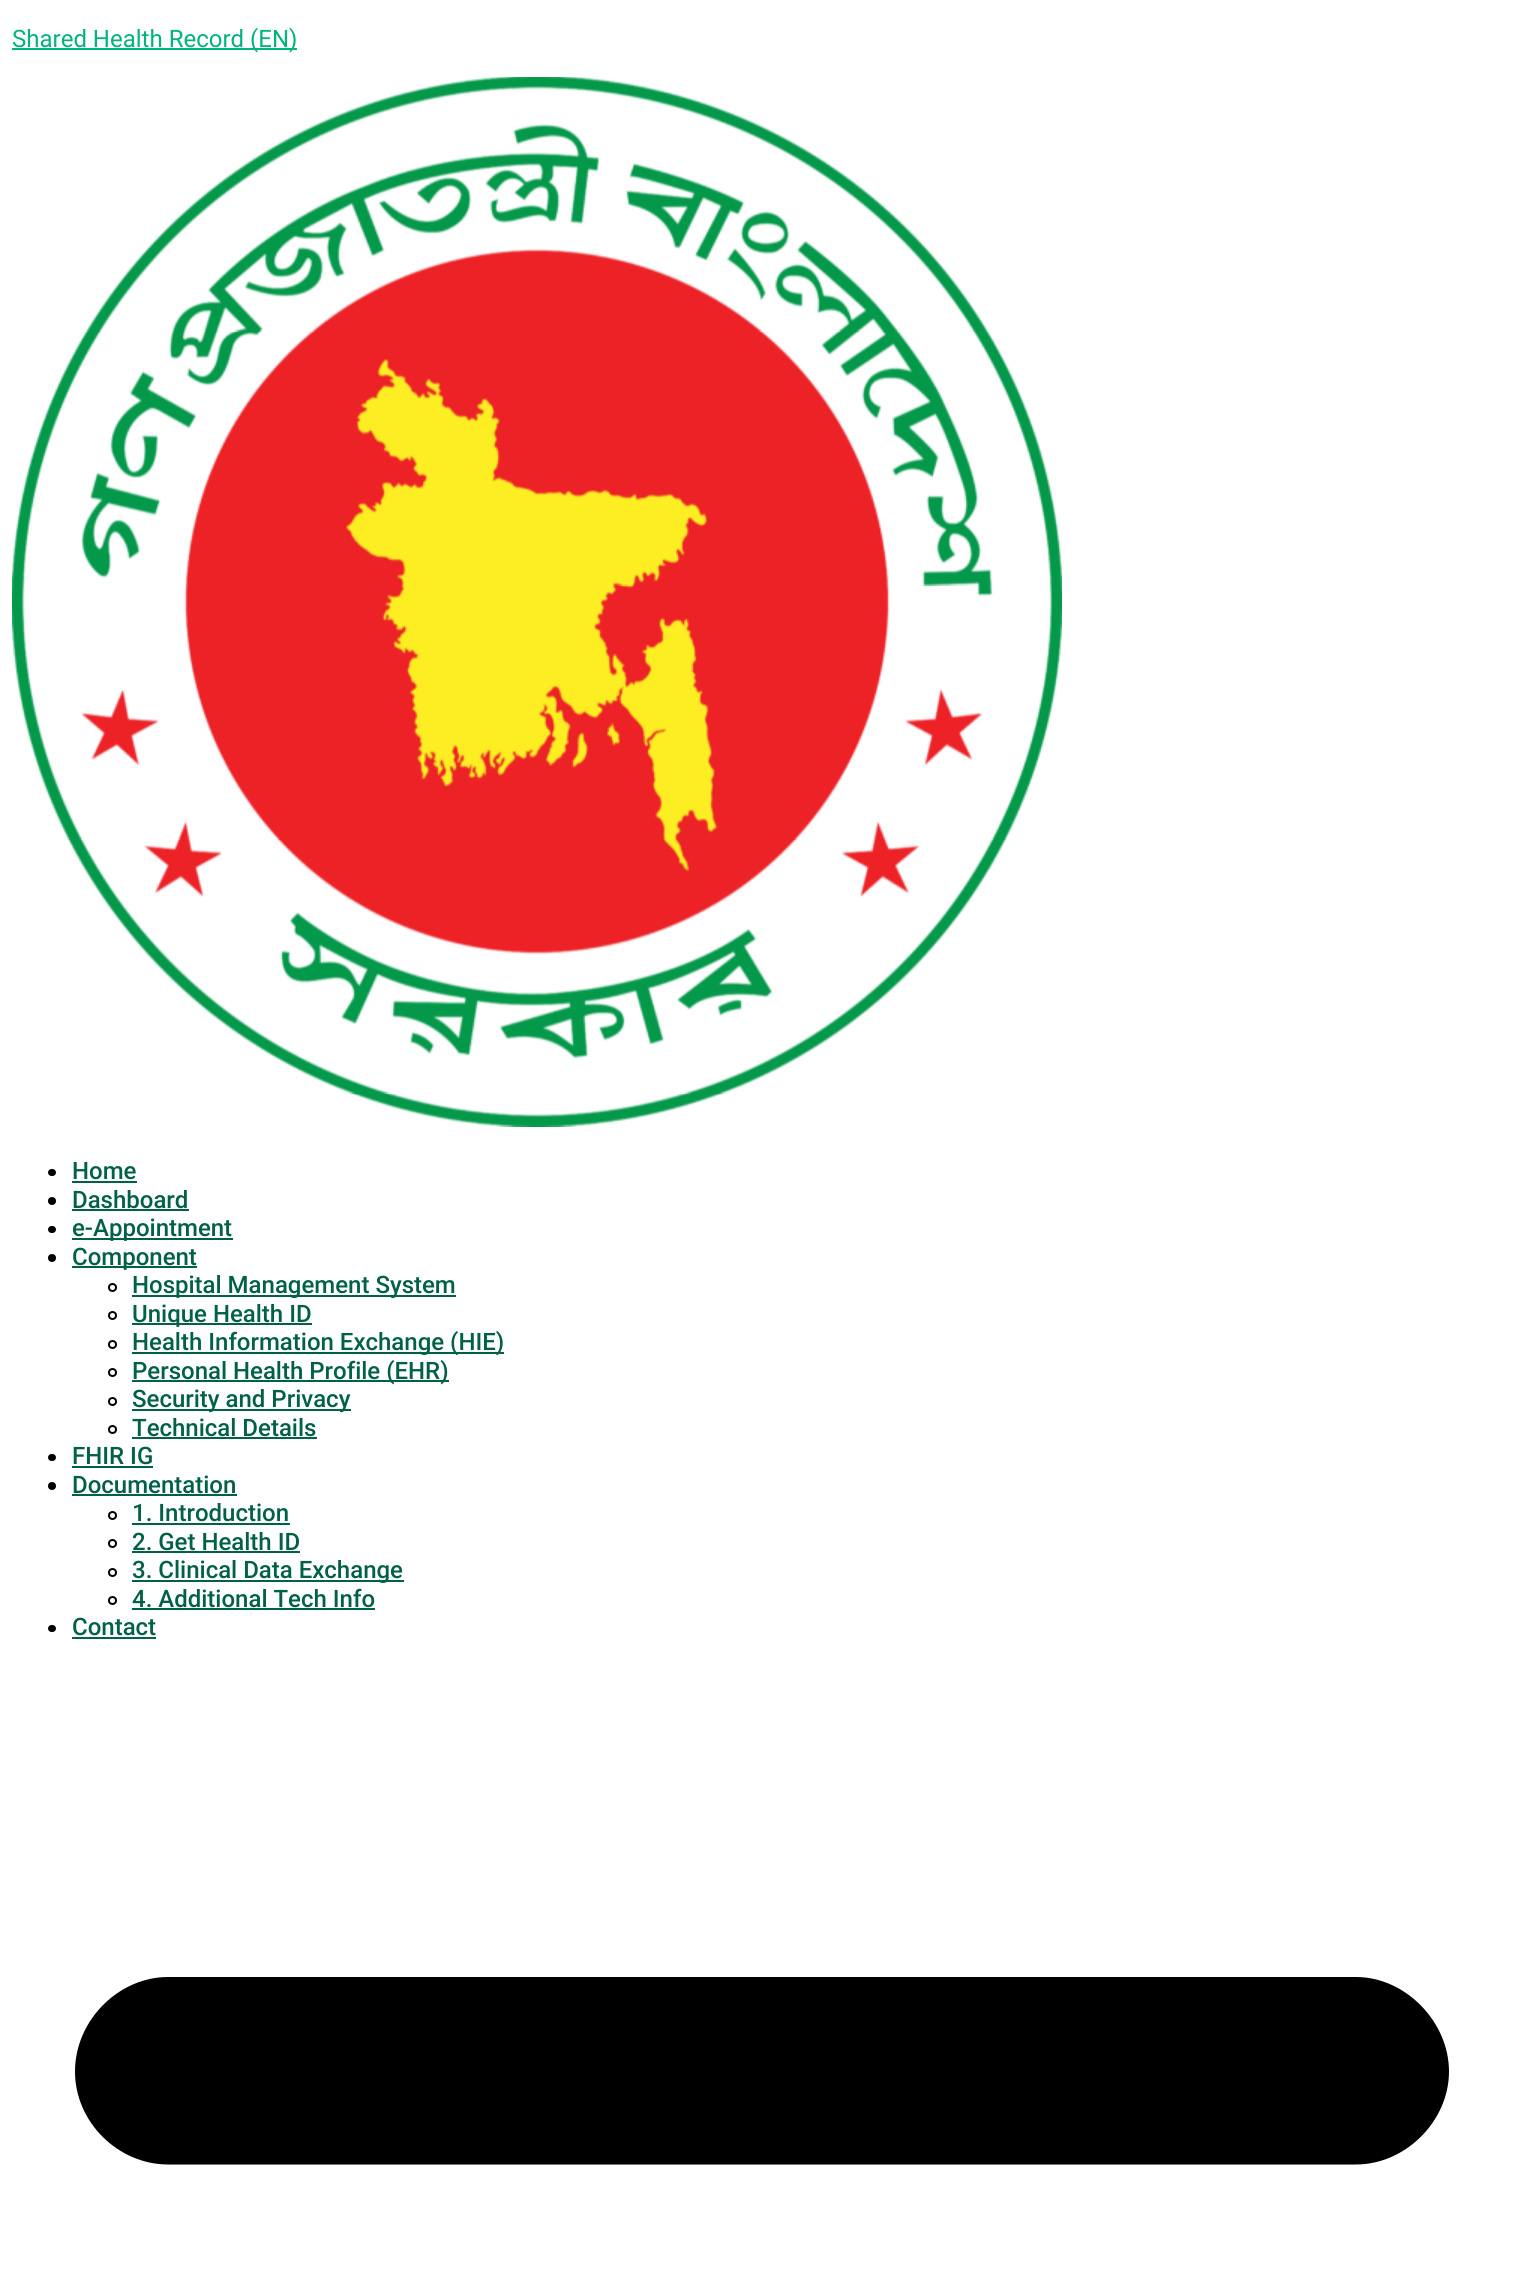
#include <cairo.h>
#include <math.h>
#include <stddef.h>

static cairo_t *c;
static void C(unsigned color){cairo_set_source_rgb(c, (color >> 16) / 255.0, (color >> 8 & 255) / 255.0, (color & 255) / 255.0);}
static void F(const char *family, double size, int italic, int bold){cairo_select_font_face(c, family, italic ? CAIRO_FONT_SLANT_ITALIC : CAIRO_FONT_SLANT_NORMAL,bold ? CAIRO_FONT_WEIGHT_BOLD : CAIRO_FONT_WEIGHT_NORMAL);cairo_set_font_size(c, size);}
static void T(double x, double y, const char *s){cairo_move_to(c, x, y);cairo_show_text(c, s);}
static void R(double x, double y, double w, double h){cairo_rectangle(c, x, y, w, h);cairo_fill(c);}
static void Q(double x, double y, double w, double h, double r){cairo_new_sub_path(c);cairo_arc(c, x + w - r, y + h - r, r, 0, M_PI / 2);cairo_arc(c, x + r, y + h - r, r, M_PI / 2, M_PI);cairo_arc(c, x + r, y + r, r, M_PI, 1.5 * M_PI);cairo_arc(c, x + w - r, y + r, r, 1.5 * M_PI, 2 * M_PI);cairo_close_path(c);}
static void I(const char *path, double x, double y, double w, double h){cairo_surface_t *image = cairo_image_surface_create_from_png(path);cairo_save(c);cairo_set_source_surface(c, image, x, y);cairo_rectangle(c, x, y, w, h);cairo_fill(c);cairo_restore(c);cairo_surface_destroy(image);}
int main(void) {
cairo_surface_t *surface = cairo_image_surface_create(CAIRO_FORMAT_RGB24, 1523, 2277);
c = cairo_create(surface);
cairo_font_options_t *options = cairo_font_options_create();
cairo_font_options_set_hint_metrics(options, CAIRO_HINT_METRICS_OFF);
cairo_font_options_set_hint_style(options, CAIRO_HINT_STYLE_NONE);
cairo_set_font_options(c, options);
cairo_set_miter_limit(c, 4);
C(0xffffff);
cairo_paint(c);
C(0x00b37f);
R(12,48,285,2);
F("Roboto",24,0,0);
T(12,47,"Shared Health Record (EN)");
I("1.png",12,77,1050,1050);
C(0x000000);
Q(48,1169,8,7,3.5);
cairo_fill(c);
F("Roboto Medium",24,0,0);
C(0x016147);
T(72,1179,"Home");
R(72,1181,65,2);
C(0x000000);
cairo_new_path(c);
cairo_arc(c,52,1201,4,0,2 * M_PI);
cairo_fill(c);
C(0x016147);
T(72,1208,"Dashboard");
R(72,1209,117,2);
C(0x000000);
Q(48,1226,8,7,3.5);
cairo_fill(c);
C(0x016147);
R(72,1238,161,2);
T(72,1236,"e-Appointment");
C(0x000000);
cairo_new_path(c);
cairo_arc(c,52,1258,4,0,2 * M_PI);
cairo_fill(c);
C(0x016147);
R(72,1266,125,2);
T(72,1265,"Component");
cairo_new_path(c);
cairo_arc(c,112.5,1287.5,3.5,0,2 * M_PI);
C(0x000000);
cairo_stroke(c);
C(0x016147);
R(132,1295,324,2);
T(132,1293,"Hospital Management System");
cairo_new_path(c);
cairo_arc(c,112.5,1315.5,3.5,0,2 * M_PI);
C(0x000000);
cairo_stroke(c);
C(0x016147);
R(132,1323,180,2);
T(132,1322,"Unique Health ID");
cairo_new_path(c);
cairo_arc(c,112.5,1344.5,3.5,0,2 * M_PI);
C(0x000000);
cairo_stroke(c);
C(0x016147);
R(132,1352,372,2);
T(132,1350,"Health Information Exchange (HIE)");
cairo_new_path(c);
cairo_arc(c,112.5,1372.5,3.5,0,2 * M_PI);
C(0x000000);
cairo_stroke(c);
C(0x016147);
R(132,1380,317,2);
T(132,1379,"Personal Health Profile (EHR)");
cairo_new_path(c);
cairo_arc(c,112.5,1401.5,3.5,0,2 * M_PI);
C(0x000000);
cairo_stroke(c);
C(0x016147);
R(132,1409,219,2);
T(132,1407,"Security and Privacy");
cairo_new_path(c);
cairo_arc(c,112.5,1429.5,3.5,0,2 * M_PI);
C(0x000000);
cairo_stroke(c);
C(0x016147);
T(132,1436,"Technical Details");
R(132,1437,185,2);
C(0x000000);
Q(48,1454,8,7,3.5);
cairo_fill(c);
C(0x016147);
T(72,1464,"FHIR IG");
R(72,1466,81,2);
C(0x000000);
cairo_new_path(c);
cairo_arc(c,52,1486,4,0,2 * M_PI);
cairo_fill(c);
C(0x016147);
T(72,1493,"Documentation");
R(72,1494,165,2);
cairo_new_path(c);
cairo_arc(c,112.5,1515.5,3.5,0,2 * M_PI);
C(0x000000);
cairo_stroke(c);
C(0x016147);
T(132,1521,"1. Introduction");
R(132,1523,158,2);
cairo_new_path(c);
cairo_arc(c,112.5,1543.5,3.5,0,2 * M_PI);
C(0x000000);
cairo_stroke(c);
C(0x016147);
T(132,1550,"2. Get Health ID");
R(132,1551,168,2);
cairo_new_path(c);
cairo_arc(c,112.5,1572.5,3.5,0,2 * M_PI);
C(0x000000);
cairo_stroke(c);
C(0x016147);
R(132,1580,272,2);
T(132,1578,"3. Clinical Data Exchange");
cairo_new_path(c);
cairo_arc(c,112.5,1600.5,3.5,0,2 * M_PI);
C(0x000000);
cairo_stroke(c);
C(0x016147);
T(132,1607,"4. Additional Tech Info");
R(132,1608,243,2);
C(0x000000);
Q(48,1625,8,7,3.5);
cairo_fill(c);
C(0x016147);
T(72,1635,"Contact");
R(72,1637,84,2);
I("2.png",75,1977,1374,188);
cairo_surface_write_to_png(surface, "o.png");
cairo_font_options_destroy(options);
cairo_destroy(c);
cairo_surface_destroy(surface);
return 0;
}
